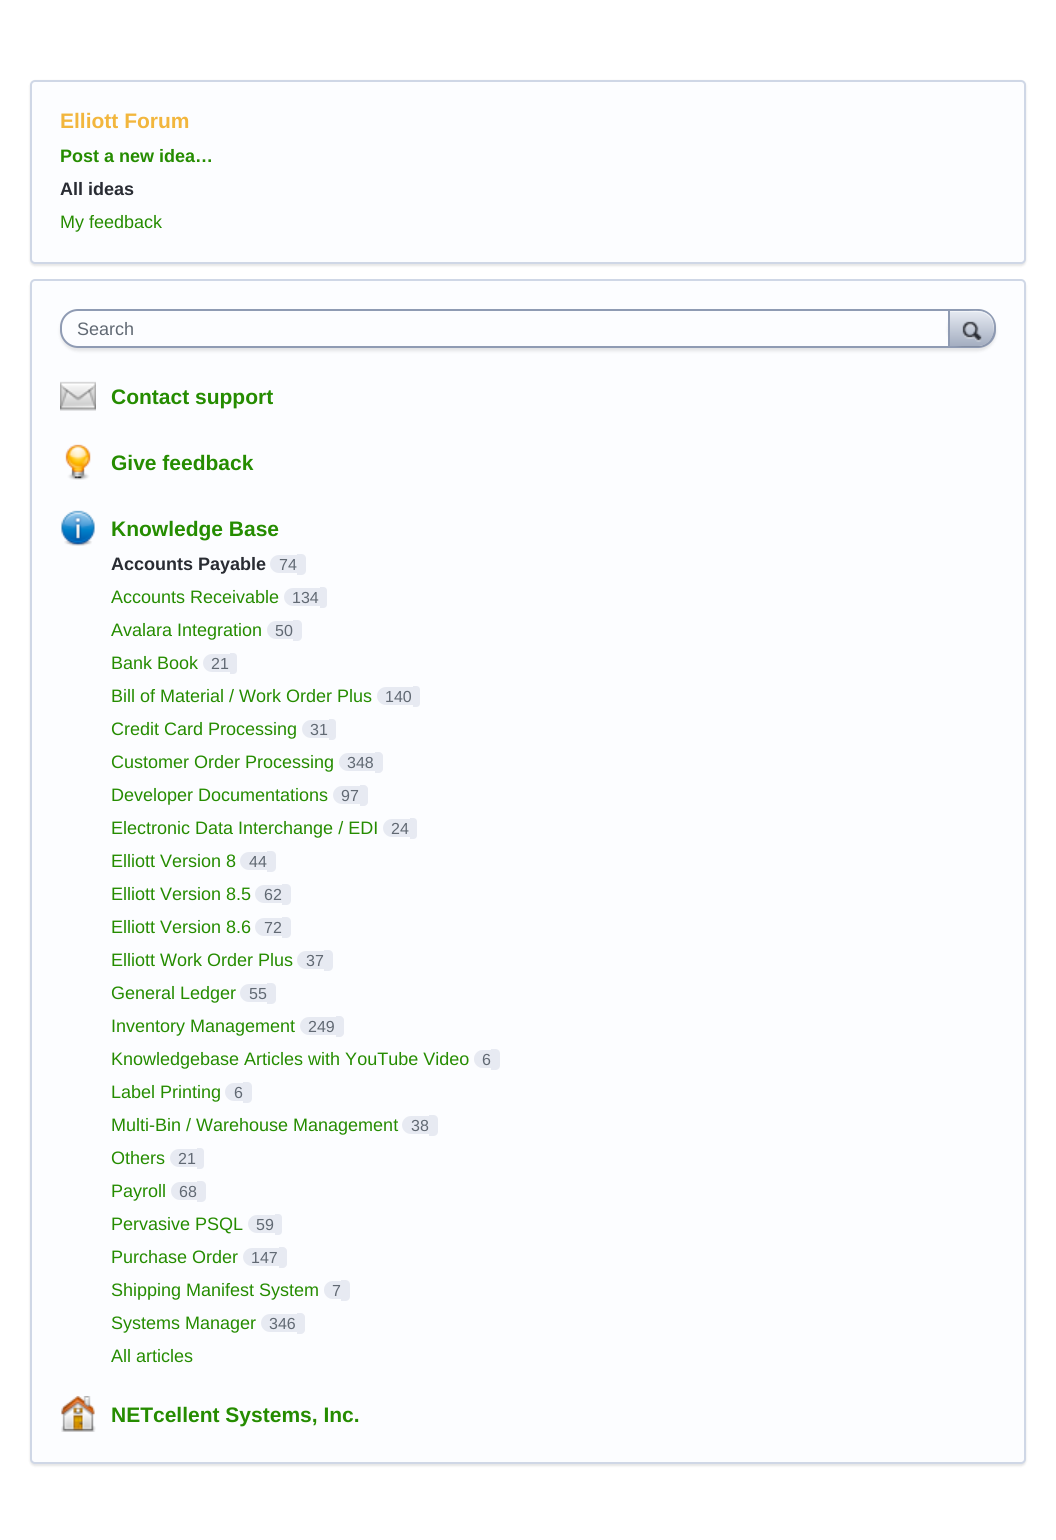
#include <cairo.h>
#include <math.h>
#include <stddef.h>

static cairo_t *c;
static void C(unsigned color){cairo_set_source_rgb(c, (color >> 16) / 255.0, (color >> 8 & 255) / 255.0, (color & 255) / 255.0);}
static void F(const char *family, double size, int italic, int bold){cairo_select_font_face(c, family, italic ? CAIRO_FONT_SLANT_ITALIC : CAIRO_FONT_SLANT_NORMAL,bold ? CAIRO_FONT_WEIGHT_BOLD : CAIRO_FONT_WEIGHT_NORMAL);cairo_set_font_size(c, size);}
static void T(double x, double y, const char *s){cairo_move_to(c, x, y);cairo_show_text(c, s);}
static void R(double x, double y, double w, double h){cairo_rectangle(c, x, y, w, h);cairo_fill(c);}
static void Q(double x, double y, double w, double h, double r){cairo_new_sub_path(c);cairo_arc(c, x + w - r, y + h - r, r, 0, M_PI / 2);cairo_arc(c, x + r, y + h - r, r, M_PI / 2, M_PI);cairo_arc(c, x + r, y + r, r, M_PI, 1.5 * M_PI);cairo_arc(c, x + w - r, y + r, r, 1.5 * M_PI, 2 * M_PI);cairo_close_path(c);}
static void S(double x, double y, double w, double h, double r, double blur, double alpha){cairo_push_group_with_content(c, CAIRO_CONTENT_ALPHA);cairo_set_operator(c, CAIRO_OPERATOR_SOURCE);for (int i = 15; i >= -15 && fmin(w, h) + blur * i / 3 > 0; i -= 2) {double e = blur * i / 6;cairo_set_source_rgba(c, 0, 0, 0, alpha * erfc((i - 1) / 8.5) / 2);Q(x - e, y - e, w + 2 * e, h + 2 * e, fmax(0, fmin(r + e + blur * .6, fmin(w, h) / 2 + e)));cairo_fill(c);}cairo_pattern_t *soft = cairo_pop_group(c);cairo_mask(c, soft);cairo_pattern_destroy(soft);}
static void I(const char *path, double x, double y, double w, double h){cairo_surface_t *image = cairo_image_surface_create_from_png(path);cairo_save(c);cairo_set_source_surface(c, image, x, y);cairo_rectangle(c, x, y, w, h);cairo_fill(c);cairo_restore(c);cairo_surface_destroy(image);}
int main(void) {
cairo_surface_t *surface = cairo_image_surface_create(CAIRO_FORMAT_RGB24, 1056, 1540);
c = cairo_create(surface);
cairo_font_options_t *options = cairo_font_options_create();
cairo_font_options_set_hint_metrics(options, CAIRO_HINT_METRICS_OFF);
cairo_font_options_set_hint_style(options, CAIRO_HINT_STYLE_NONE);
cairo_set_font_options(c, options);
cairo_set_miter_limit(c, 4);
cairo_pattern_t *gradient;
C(0xffffff);
cairo_paint(c);
C(0x000000);
S(30,81,996,185,5,1,.1);
C(0xfcfdff);
Q(31,81,994,182,4);
cairo_fill_preserve(c);
C(0xcfd7e6);
cairo_stroke(c);
F("Liberation Sans",21,0,1);
C(0xf2b63d);
T(60,128,"Elliott Forum");
F("Liberation Sans",18,0,1);
C(0x258c00);
T(60,162,"Post a new idea…");
C(0x292c33);
T(60,195,"All ideas");
F("Liberation Sans",18,0,0);
C(0x258c00);
T(60,228,"My feedback");
C(0x000000);
S(30,281,996,1185,5,1,.1);
C(0xfcfdff);
Q(31,280,994,1183,4);
cairo_fill_preserve(c);
C(0xcfd7e6);
cairo_stroke(c);
C(0x000000);
S(60,312,936,39,18,1.5,.1);
C(0xfcfdff);
Q(61,310,934,37,17);
cairo_fill_preserve(c);
C(0x8f9bb3);
cairo_stroke(c);
C(0x616973);
T(77,335,"Search");
cairo_save(c);
Q(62,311,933,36,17);
cairo_clip(c);
C(0x000000);
S(948,311,48,37,18,1.5,.1);
cairo_restore(c);
gradient = cairo_pattern_create_linear(950,311,950,347);
cairo_pattern_add_color_stop_rgba(gradient,0,0.902,0.918,0.949,1);
cairo_pattern_add_color_stop_rgba(gradient,1,0.635,0.675,0.749,1);
cairo_set_source(c,gradient);
cairo_pattern_destroy(gradient);
cairo_new_path(c);
cairo_move_to(c,990,316);
cairo_curve_to(c,993,319,994,323,994,327);
cairo_line_to(c,994,328);
cairo_curve_to(c,994,338,987,346,978,346);
cairo_line_to(c,950,346);
cairo_line_to(c,950,311);
cairo_line_to(c,978,311);
cairo_curve_to(c,983,311,987,313,990,316);
cairo_close_path(c);
cairo_fill(c);
cairo_set_source_rgba(c,1,1,1,0.5);
cairo_new_path(c);
cairo_move_to(c,950,312);
cairo_line_to(c,950,346);
cairo_line_to(c,950,311);
cairo_line_to(c,968,311);
cairo_curve_to(c,973,311,978,310,982,312);
cairo_curve_to(c,993,314,997,325,993,335);
cairo_curve_to(c,996,324,990,312,978,312);
cairo_close_path(c);
cairo_fill(c);
C(0x8f9bb3);
cairo_new_path(c);
cairo_move_to(c,993,338);
cairo_curve_to(c,990,343,984.5,346,978,346);
cairo_curve_to(c,992.5,346,998.5,327,990.5,316.5);
cairo_curve_to(c,995.5,322,996.5,331.5,993,338);
cairo_close_path(c);
cairo_fill(c);
R(948,311,2,35);
I("1.png",962,321,20,21);
I("2.png",60,381,36,30);
F("Liberation Sans",21,0,1);
C(0x258c00);
T(111,404,"Contact support");
I("3.png",65,444,26,36);
T(111,470,"Give feedback");
I("4.png",61,510,34,36);
T(111,536,"Knowledge Base");
F("Liberation Sans",18,0,1);
C(0x292c33);
T(111,570,"Accounts Payable");
C(0xe7eaf2);
cairo_new_path(c);
cairo_move_to(c,279,555);
cairo_line_to(c,297,555);
cairo_line_to(c,297,573);
cairo_line_to(c,279,573);
cairo_curve_to(c,274,573,270,569,270,564);
cairo_curve_to(c,270,559,274,555,279,555);
cairo_close_path(c);
cairo_fill(c);
F("Liberation Sans",16,0,0);
C(0x616973);
T(279,570,"74");
C(0xe7eaf2);
cairo_new_path(c);
cairo_move_to(c,297,554);
cairo_line_to(c,301.5,554);
cairo_curve_to(c,304,554,306,556,306,558.5);
cairo_line_to(c,306,570.5);
cairo_curve_to(c,306,573,304,575,301.5,575);
cairo_line_to(c,297,575);
cairo_close_path(c);
cairo_fill(c);
F("Liberation Sans",18,0,0);
C(0x258c00);
T(111,603,"Accounts Receivable");
C(0xe7eaf2);
cairo_new_path(c);
cairo_move_to(c,293,588);
cairo_line_to(c,320,588);
cairo_line_to(c,320,606);
cairo_line_to(c,293,606);
cairo_curve_to(c,288,606,284,602,284,597);
cairo_curve_to(c,284,592,288,588,293,588);
cairo_close_path(c);
cairo_fill(c);
F("Liberation Sans",16,0,0);
C(0x616973);
T(292,603,"134");
C(0xe7eaf2);
cairo_new_path(c);
cairo_move_to(c,320,587);
cairo_line_to(c,323.5,587);
cairo_curve_to(c,325.5,587,327,588.5,327,590.5);
cairo_line_to(c,327,604.5);
cairo_curve_to(c,327,606.5,325.5,608,323.5,608);
cairo_line_to(c,320,608);
cairo_close_path(c);
cairo_fill(c);
F("Liberation Sans",18,0,0);
C(0x258c00);
T(111,636,"Avalara Integration");
C(0xe7eaf2);
cairo_new_path(c);
cairo_move_to(c,276,621);
cairo_line_to(c,293,621);
cairo_line_to(c,293,639);
cairo_line_to(c,276,639);
cairo_curve_to(c,271,639,267,635,267,630);
cairo_curve_to(c,267,625,271,621,276,621);
cairo_close_path(c);
cairo_fill(c);
F("Liberation Sans",16,0,0);
C(0x616973);
T(275,636,"50");
C(0xe7eaf2);
cairo_new_path(c);
cairo_move_to(c,293,620);
cairo_line_to(c,297.5,620);
cairo_curve_to(c,300,620,302,622,302,624.5);
cairo_line_to(c,302,636.5);
cairo_curve_to(c,302,639,300,641,297.5,641);
cairo_line_to(c,293,641);
cairo_close_path(c);
cairo_fill(c);
F("Liberation Sans",18,0,0);
C(0x258c00);
T(111,669,"Bank Book");
C(0xe7eaf2);
cairo_new_path(c);
cairo_move_to(c,212,654);
cairo_line_to(c,230,654);
cairo_line_to(c,230,672);
cairo_line_to(c,212,672);
cairo_curve_to(c,207,672,203,668,203,663);
cairo_curve_to(c,203,658,207,654,212,654);
cairo_close_path(c);
cairo_fill(c);
F("Liberation Sans",16,0,0);
C(0x616973);
T(211,669,"21");
C(0xe7eaf2);
cairo_new_path(c);
cairo_move_to(c,230,653);
cairo_line_to(c,233.5,653);
cairo_curve_to(c,235.5,653,237,654.5,237,656.5);
cairo_line_to(c,237,670.5);
cairo_curve_to(c,237,672.5,235.5,674,233.5,674);
cairo_line_to(c,230,674);
cairo_close_path(c);
cairo_fill(c);
F("Liberation Sans",18,0,0);
C(0x258c00);
T(111,702,"Bill of Material / Work Order Plus");
C(0xe7eaf2);
cairo_new_path(c);
cairo_move_to(c,386,687);
cairo_line_to(c,413,687);
cairo_line_to(c,413,705);
cairo_line_to(c,386,705);
cairo_curve_to(c,381,705,377,701,377,696);
cairo_curve_to(c,377,691,381,687,386,687);
cairo_close_path(c);
cairo_fill(c);
F("Liberation Sans",16,0,0);
C(0x616973);
T(385,702,"140");
C(0xe7eaf2);
cairo_new_path(c);
cairo_move_to(c,413,686);
cairo_line_to(c,416.5,686);
cairo_curve_to(c,418.5,686,420,687.5,420,689.5);
cairo_line_to(c,420,703.5);
cairo_curve_to(c,420,705.5,418.5,707,416.5,707);
cairo_line_to(c,413,707);
cairo_close_path(c);
cairo_fill(c);
F("Liberation Sans",18,0,0);
C(0x258c00);
T(111,735,"Credit Card Processing");
C(0xe7eaf2);
cairo_new_path(c);
cairo_move_to(c,311,720);
cairo_line_to(c,329,720);
cairo_line_to(c,329,738);
cairo_line_to(c,311,738);
cairo_curve_to(c,306,738,302,734,302,729);
cairo_curve_to(c,302,724,306,720,311,720);
cairo_close_path(c);
cairo_fill(c);
F("Liberation Sans",16,0,0);
C(0x616973);
T(310,735,"31");
C(0xe7eaf2);
cairo_new_path(c);
cairo_move_to(c,329,719);
cairo_line_to(c,332.5,719);
cairo_curve_to(c,334.5,719,336,720.5,336,722.5);
cairo_line_to(c,336,736.5);
cairo_curve_to(c,336,738.5,334.5,740,332.5,740);
cairo_line_to(c,329,740);
cairo_close_path(c);
cairo_fill(c);
F("Liberation Sans",18,0,0);
C(0x258c00);
T(111,768,"Customer Order Processing");
C(0xe7eaf2);
cairo_new_path(c);
cairo_move_to(c,348,753);
cairo_line_to(c,375,753);
cairo_line_to(c,375,771);
cairo_line_to(c,348,771);
cairo_curve_to(c,343,771,339,767,339,762);
cairo_curve_to(c,339,757,343,753,348,753);
cairo_close_path(c);
cairo_fill(c);
F("Liberation Sans",16,0,0);
C(0x616973);
T(347,768,"348");
C(0xe7eaf2);
cairo_new_path(c);
cairo_move_to(c,375,752);
cairo_line_to(c,379,752);
cairo_curve_to(c,381,752,383,754,383,756);
cairo_line_to(c,383,769);
cairo_curve_to(c,383,771,381,773,379,773);
cairo_line_to(c,375,773);
cairo_close_path(c);
cairo_fill(c);
F("Liberation Sans",18,0,0);
C(0x258c00);
T(111,801,"Developer Documentations");
C(0xe7eaf2);
cairo_new_path(c);
cairo_move_to(c,342,786);
cairo_line_to(c,360,786);
cairo_line_to(c,360,804);
cairo_line_to(c,342,804);
cairo_curve_to(c,337,804,333,800,333,795);
cairo_curve_to(c,333,790,337,786,342,786);
cairo_close_path(c);
cairo_fill(c);
F("Liberation Sans",16,0,0);
C(0x616973);
T(341,801,"97");
C(0xe7eaf2);
cairo_new_path(c);
cairo_move_to(c,360,785);
cairo_line_to(c,364,785);
cairo_curve_to(c,366,785,368,787,368,789);
cairo_line_to(c,368,802);
cairo_curve_to(c,368,804,366,806,364,806);
cairo_line_to(c,360,806);
cairo_close_path(c);
cairo_fill(c);
F("Liberation Sans",18,0,0);
C(0x258c00);
T(111,834,"Electronic Data Interchange / EDI");
C(0xe7eaf2);
cairo_new_path(c);
cairo_move_to(c,392,819);
cairo_line_to(c,410,819);
cairo_line_to(c,410,837);
cairo_line_to(c,392,837);
cairo_curve_to(c,387,837,383,833,383,828);
cairo_curve_to(c,383,823,387,819,392,819);
cairo_close_path(c);
cairo_fill(c);
F("Liberation Sans",16,0,0);
C(0x616973);
T(391,834,"24");
C(0xe7eaf2);
cairo_new_path(c);
cairo_move_to(c,410,818);
cairo_line_to(c,413.5,818);
cairo_curve_to(c,415.5,818,417,819.5,417,821.5);
cairo_line_to(c,417,835.5);
cairo_curve_to(c,417,837.5,415.5,839,413.5,839);
cairo_line_to(c,410,839);
cairo_close_path(c);
cairo_fill(c);
F("Liberation Sans",18,0,0);
C(0x258c00);
T(111,867,"Elliott Version 8");
C(0xe7eaf2);
cairo_new_path(c);
cairo_move_to(c,249,852);
cairo_line_to(c,267,852);
cairo_line_to(c,267,870);
cairo_line_to(c,249,870);
cairo_curve_to(c,244,870,240,866,240,861);
cairo_curve_to(c,240,856,244,852,249,852);
cairo_close_path(c);
cairo_fill(c);
F("Liberation Sans",16,0,0);
C(0x616973);
T(249,867,"44");
C(0xe7eaf2);
cairo_new_path(c);
cairo_move_to(c,267,851);
cairo_line_to(c,271.5,851);
cairo_curve_to(c,274,851,276,853,276,855.5);
cairo_line_to(c,276,867.5);
cairo_curve_to(c,276,870,274,872,271.5,872);
cairo_line_to(c,267,872);
cairo_close_path(c);
cairo_fill(c);
F("Liberation Sans",18,0,0);
C(0x258c00);
T(111,900,"Elliott Version 8.5");
C(0xe7eaf2);
cairo_new_path(c);
cairo_move_to(c,264,885);
cairo_line_to(c,282,885);
cairo_line_to(c,282,903);
cairo_line_to(c,264,903);
cairo_curve_to(c,259,903,255,899,255,894);
cairo_curve_to(c,255,889,259,885,264,885);
cairo_close_path(c);
cairo_fill(c);
F("Liberation Sans",16,0,0);
C(0x616973);
T(264,900,"62");
C(0xe7eaf2);
cairo_new_path(c);
cairo_move_to(c,282,884);
cairo_line_to(c,286.5,884);
cairo_curve_to(c,289,884,291,886,291,888.5);
cairo_line_to(c,291,900.5);
cairo_curve_to(c,291,903,289,905,286.5,905);
cairo_line_to(c,282,905);
cairo_close_path(c);
cairo_fill(c);
F("Liberation Sans",18,0,0);
C(0x258c00);
T(111,933,"Elliott Version 8.6");
C(0xe7eaf2);
cairo_new_path(c);
cairo_move_to(c,264,918);
cairo_line_to(c,282,918);
cairo_line_to(c,282,936);
cairo_line_to(c,264,936);
cairo_curve_to(c,259,936,255,932,255,927);
cairo_curve_to(c,255,922,259,918,264,918);
cairo_close_path(c);
cairo_fill(c);
F("Liberation Sans",16,0,0);
C(0x616973);
T(264,933,"72");
C(0xe7eaf2);
cairo_new_path(c);
cairo_move_to(c,282,917);
cairo_line_to(c,286.5,917);
cairo_curve_to(c,289,917,291,919,291,921.5);
cairo_line_to(c,291,933.5);
cairo_curve_to(c,291,936,289,938,286.5,938);
cairo_line_to(c,282,938);
cairo_close_path(c);
cairo_fill(c);
F("Liberation Sans",18,0,0);
C(0x258c00);
T(111,966,"Elliott Work Order Plus");
C(0xe7eaf2);
cairo_new_path(c);
cairo_move_to(c,306,951);
cairo_line_to(c,324,951);
cairo_line_to(c,324,969);
cairo_line_to(c,306,969);
cairo_curve_to(c,301,969,297,965,297,960);
cairo_curve_to(c,297,955,301,951,306,951);
cairo_close_path(c);
cairo_fill(c);
F("Liberation Sans",16,0,0);
C(0x616973);
T(306,966,"37");
C(0xe7eaf2);
cairo_new_path(c);
cairo_move_to(c,324,950);
cairo_line_to(c,328.5,950);
cairo_curve_to(c,331,950,333,952,333,954.5);
cairo_line_to(c,333,966.5);
cairo_curve_to(c,333,969,331,971,328.5,971);
cairo_line_to(c,324,971);
cairo_close_path(c);
cairo_fill(c);
F("Liberation Sans",18,0,0);
C(0x258c00);
T(111,999,"General Ledger");
C(0xe7eaf2);
cairo_new_path(c);
cairo_move_to(c,249,984);
cairo_line_to(c,267,984);
cairo_line_to(c,267,1002);
cairo_line_to(c,249,1002);
cairo_curve_to(c,244,1002,240,998,240,993);
cairo_curve_to(c,240,988,244,984,249,984);
cairo_close_path(c);
cairo_fill(c);
F("Liberation Sans",16,0,0);
C(0x616973);
T(249,999,"55");
C(0xe7eaf2);
cairo_new_path(c);
cairo_move_to(c,267,983);
cairo_line_to(c,271.5,983);
cairo_curve_to(c,274,983,276,985,276,987.5);
cairo_line_to(c,276,999.5);
cairo_curve_to(c,276,1002,274,1004,271.5,1004);
cairo_line_to(c,267,1004);
cairo_close_path(c);
cairo_fill(c);
F("Liberation Sans",18,0,0);
C(0x258c00);
T(111,1032,"Inventory Management");
C(0xe7eaf2);
cairo_new_path(c);
cairo_move_to(c,309,1017);
cairo_line_to(c,336,1017);
cairo_line_to(c,336,1035);
cairo_line_to(c,309,1035);
cairo_curve_to(c,304,1035,300,1031,300,1026);
cairo_curve_to(c,300,1021,304,1017,309,1017);
cairo_close_path(c);
cairo_fill(c);
F("Liberation Sans",16,0,0);
C(0x616973);
T(308,1032,"249");
C(0xe7eaf2);
cairo_new_path(c);
cairo_move_to(c,336,1016);
cairo_line_to(c,340,1016);
cairo_curve_to(c,342,1016,344,1018,344,1020);
cairo_line_to(c,344,1033);
cairo_curve_to(c,344,1035,342,1037,340,1037);
cairo_line_to(c,336,1037);
cairo_close_path(c);
cairo_fill(c);
F("Liberation Sans",18,0,0);
C(0x258c00);
T(111,1065,"Knowledgebase Articles with YouTube Video");
C(0xe7eaf2);
cairo_new_path(c);
cairo_move_to(c,482.5,1050);
cairo_line_to(c,491,1050);
cairo_line_to(c,491,1068);
cairo_line_to(c,482.5,1068);
cairo_curve_to(c,478,1068,474,1064,474,1059.5);
cairo_line_to(c,474,1058.5);
cairo_curve_to(c,474,1054,478,1050,482.5,1050);
cairo_close_path(c);
cairo_fill(c);
F("Liberation Sans",16,0,0);
C(0x616973);
T(482,1065,"6");
C(0xe7eaf2);
cairo_new_path(c);
cairo_move_to(c,491,1049);
cairo_line_to(c,495.5,1049);
cairo_curve_to(c,498,1049,500,1051,500,1053.5);
cairo_line_to(c,500,1065.5);
cairo_curve_to(c,500,1068,498,1070,495.5,1070);
cairo_line_to(c,491,1070);
cairo_close_path(c);
cairo_fill(c);
F("Liberation Sans",18,0,0);
C(0x258c00);
T(111,1098,"Label Printing");
C(0xe7eaf2);
cairo_new_path(c);
cairo_move_to(c,234,1083);
cairo_line_to(c,243,1083);
cairo_line_to(c,243,1101);
cairo_line_to(c,234,1101);
cairo_curve_to(c,229,1101,225,1097,225,1092);
cairo_curve_to(c,225,1087,229,1083,234,1083);
cairo_close_path(c);
cairo_fill(c);
F("Liberation Sans",16,0,0);
C(0x616973);
T(234,1098,"6");
C(0xe7eaf2);
cairo_new_path(c);
cairo_move_to(c,243,1082);
cairo_line_to(c,247.5,1082);
cairo_curve_to(c,250,1082,252,1084,252,1086.5);
cairo_line_to(c,252,1098.5);
cairo_curve_to(c,252,1101,250,1103,247.5,1103);
cairo_line_to(c,243,1103);
cairo_close_path(c);
cairo_fill(c);
F("Liberation Sans",18,0,0);
C(0x258c00);
T(111,1131,"Multi-Bin / Warehouse Management");
C(0xe7eaf2);
cairo_new_path(c);
cairo_move_to(c,411,1116);
cairo_line_to(c,429,1116);
cairo_line_to(c,429,1134);
cairo_line_to(c,411,1134);
cairo_curve_to(c,406,1134,402,1130,402,1125);
cairo_curve_to(c,402,1120,406,1116,411,1116);
cairo_close_path(c);
cairo_fill(c);
F("Liberation Sans",16,0,0);
C(0x616973);
T(411,1131,"38");
C(0xe7eaf2);
cairo_new_path(c);
cairo_move_to(c,429,1115);
cairo_line_to(c,433.5,1115);
cairo_curve_to(c,436,1115,438,1117,438,1119.5);
cairo_line_to(c,438,1131.5);
cairo_curve_to(c,438,1134,436,1136,433.5,1136);
cairo_line_to(c,429,1136);
cairo_close_path(c);
cairo_fill(c);
F("Liberation Sans",18,0,0);
C(0x258c00);
T(111,1164,"Others");
C(0xe7eaf2);
cairo_new_path(c);
cairo_move_to(c,179,1149);
cairo_line_to(c,197,1149);
cairo_line_to(c,197,1167);
cairo_line_to(c,179,1167);
cairo_curve_to(c,174,1167,170,1163,170,1158);
cairo_curve_to(c,170,1153,174,1149,179,1149);
cairo_close_path(c);
cairo_fill(c);
F("Liberation Sans",16,0,0);
C(0x616973);
T(178,1164,"21");
C(0xe7eaf2);
cairo_new_path(c);
cairo_move_to(c,197,1148);
cairo_line_to(c,200.5,1148);
cairo_curve_to(c,202.5,1148,204,1149.5,204,1151.5);
cairo_line_to(c,204,1165.5);
cairo_curve_to(c,204,1167.5,202.5,1169,200.5,1169);
cairo_line_to(c,197,1169);
cairo_close_path(c);
cairo_fill(c);
F("Liberation Sans",18,0,0);
C(0x258c00);
T(111,1197,"Payroll");
C(0xe7eaf2);
cairo_new_path(c);
cairo_move_to(c,180,1182);
cairo_line_to(c,197,1182);
cairo_line_to(c,197,1200);
cairo_line_to(c,180,1200);
cairo_curve_to(c,175,1200,171,1196,171,1191);
cairo_curve_to(c,171,1186,175,1182,180,1182);
cairo_close_path(c);
cairo_fill(c);
F("Liberation Sans",16,0,0);
C(0x616973);
T(179,1197,"68");
C(0xe7eaf2);
cairo_new_path(c);
cairo_move_to(c,197,1181);
cairo_line_to(c,201.5,1181);
cairo_curve_to(c,204,1181,206,1183,206,1185.5);
cairo_line_to(c,206,1197.5);
cairo_curve_to(c,206,1200,204,1202,201.5,1202);
cairo_line_to(c,197,1202);
cairo_close_path(c);
cairo_fill(c);
F("Liberation Sans",18,0,0);
C(0x258c00);
T(111,1230,"Pervasive PSQL");
C(0xe7eaf2);
cairo_new_path(c);
cairo_move_to(c,257,1215);
cairo_line_to(c,275,1215);
cairo_line_to(c,275,1233);
cairo_line_to(c,257,1233);
cairo_curve_to(c,252,1233,248,1229,248,1224);
cairo_curve_to(c,248,1219,252,1215,257,1215);
cairo_close_path(c);
cairo_fill(c);
F("Liberation Sans",16,0,0);
C(0x616973);
T(256,1230,"59");
C(0xe7eaf2);
cairo_new_path(c);
cairo_move_to(c,275,1214);
cairo_line_to(c,278.5,1214);
cairo_curve_to(c,280.5,1214,282,1215.5,282,1217.5);
cairo_line_to(c,282,1231.5);
cairo_curve_to(c,282,1233.5,280.5,1235,278.5,1235);
cairo_line_to(c,275,1235);
cairo_close_path(c);
cairo_fill(c);
F("Liberation Sans",18,0,0);
C(0x258c00);
T(111,1263,"Purchase Order");
C(0xe7eaf2);
cairo_new_path(c);
cairo_move_to(c,252,1248);
cairo_line_to(c,279,1248);
cairo_line_to(c,279,1266);
cairo_line_to(c,252,1266);
cairo_curve_to(c,247,1266,243,1262,243,1257);
cairo_curve_to(c,243,1252,247,1248,252,1248);
cairo_close_path(c);
cairo_fill(c);
F("Liberation Sans",16,0,0);
C(0x616973);
T(251,1263,"147");
C(0xe7eaf2);
cairo_new_path(c);
cairo_move_to(c,279,1247);
cairo_line_to(c,283,1247);
cairo_curve_to(c,285,1247,287,1249,287,1251);
cairo_line_to(c,287,1264);
cairo_curve_to(c,287,1266,285,1268,283,1268);
cairo_line_to(c,279,1268);
cairo_close_path(c);
cairo_fill(c);
F("Liberation Sans",18,0,0);
C(0x258c00);
T(111,1296,"Shipping Manifest System");
C(0xe7eaf2);
cairo_new_path(c);
cairo_move_to(c,332.5,1281);
cairo_line_to(c,341,1281);
cairo_line_to(c,341,1299);
cairo_line_to(c,332.5,1299);
cairo_curve_to(c,328,1299,324,1295,324,1290.5);
cairo_line_to(c,324,1289.5);
cairo_curve_to(c,324,1285,328,1281,332.5,1281);
cairo_close_path(c);
cairo_fill(c);
F("Liberation Sans",16,0,0);
C(0x616973);
T(332,1296,"7");
C(0xe7eaf2);
cairo_new_path(c);
cairo_move_to(c,341,1280);
cairo_line_to(c,345.5,1280);
cairo_curve_to(c,348,1280,350,1282,350,1284.5);
cairo_line_to(c,350,1296.5);
cairo_curve_to(c,350,1299,348,1301,345.5,1301);
cairo_line_to(c,341,1301);
cairo_close_path(c);
cairo_fill(c);
F("Liberation Sans",18,0,0);
C(0x258c00);
T(111,1329,"Systems Manager");
C(0xe7eaf2);
cairo_new_path(c);
cairo_move_to(c,270,1314);
cairo_line_to(c,297,1314);
cairo_line_to(c,297,1332);
cairo_line_to(c,270,1332);
cairo_curve_to(c,265,1332,261,1328,261,1323);
cairo_curve_to(c,261,1318,265,1314,270,1314);
cairo_close_path(c);
cairo_fill(c);
F("Liberation Sans",16,0,0);
C(0x616973);
T(269,1329,"346");
C(0xe7eaf2);
cairo_new_path(c);
cairo_move_to(c,297,1313);
cairo_line_to(c,301,1313);
cairo_curve_to(c,303,1313,305,1315,305,1317);
cairo_line_to(c,305,1330);
cairo_curve_to(c,305,1332,303,1334,301,1334);
cairo_line_to(c,297,1334);
cairo_close_path(c);
cairo_fill(c);
F("Liberation Sans",18,0,0);
C(0x258c00);
T(111,1362,"All articles");
I("5.png",61,1396,35,36);
F("Liberation Sans",21,0,1);
T(111,1422,"NETcellent Systems, Inc.");
cairo_surface_write_to_png(surface, "o.png");
cairo_font_options_destroy(options);
cairo_destroy(c);
cairo_surface_destroy(surface);
return 0;
}
